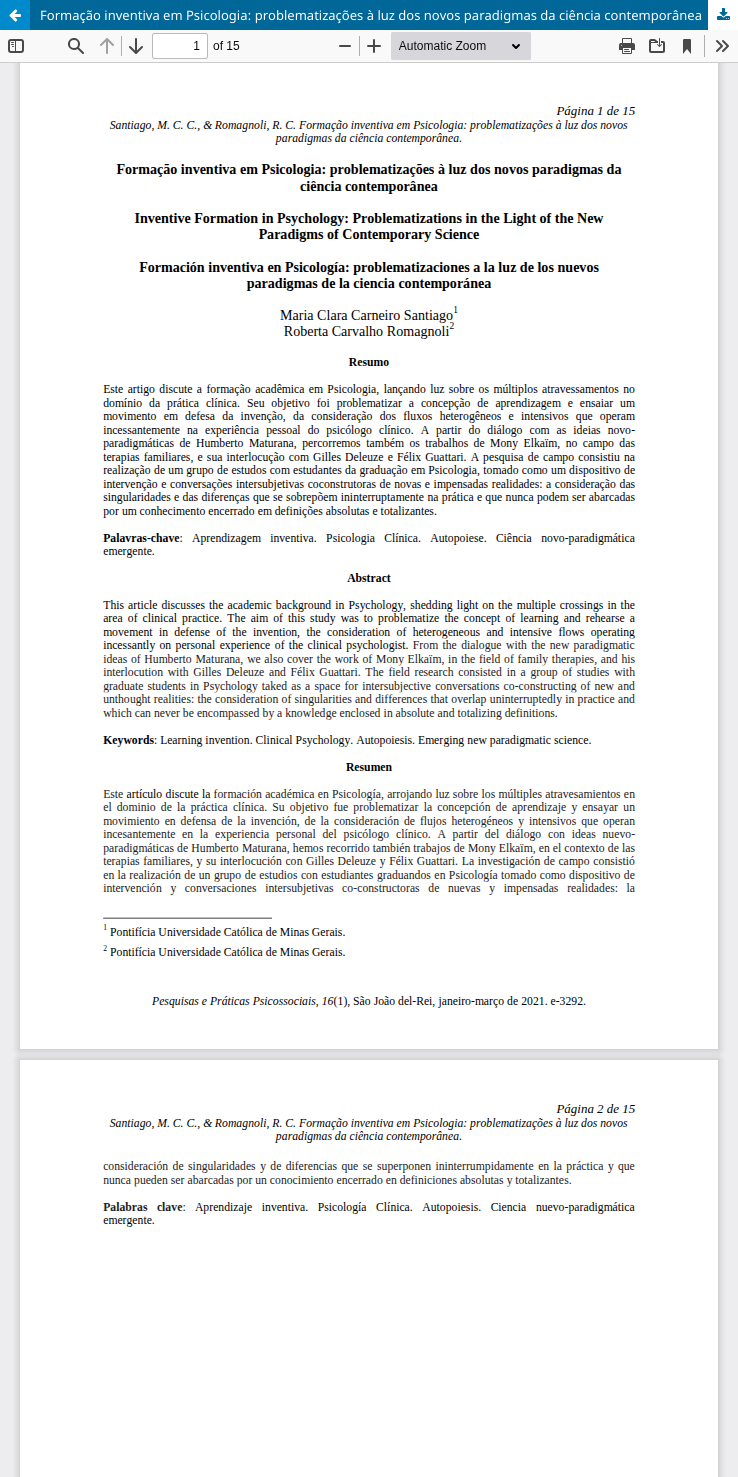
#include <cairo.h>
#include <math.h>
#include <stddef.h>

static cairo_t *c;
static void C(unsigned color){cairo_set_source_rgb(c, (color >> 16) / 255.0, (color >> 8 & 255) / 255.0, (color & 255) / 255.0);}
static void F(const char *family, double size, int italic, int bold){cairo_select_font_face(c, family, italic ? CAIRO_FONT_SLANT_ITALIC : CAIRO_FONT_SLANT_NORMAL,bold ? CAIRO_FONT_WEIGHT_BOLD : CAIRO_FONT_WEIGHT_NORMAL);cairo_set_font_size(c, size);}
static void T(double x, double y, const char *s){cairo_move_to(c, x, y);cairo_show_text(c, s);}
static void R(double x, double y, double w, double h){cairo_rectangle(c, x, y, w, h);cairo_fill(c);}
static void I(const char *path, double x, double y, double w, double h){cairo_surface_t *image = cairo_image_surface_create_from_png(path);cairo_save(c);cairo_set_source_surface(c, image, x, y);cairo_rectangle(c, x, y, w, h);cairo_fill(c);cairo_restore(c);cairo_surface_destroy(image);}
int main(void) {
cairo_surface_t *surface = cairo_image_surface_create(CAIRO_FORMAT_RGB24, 738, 1477);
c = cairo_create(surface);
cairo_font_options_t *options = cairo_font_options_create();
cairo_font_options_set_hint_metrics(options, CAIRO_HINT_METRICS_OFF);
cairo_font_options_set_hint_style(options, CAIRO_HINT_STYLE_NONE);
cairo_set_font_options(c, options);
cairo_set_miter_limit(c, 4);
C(0xffffff);
cairo_paint(c);
C(0x006798);
R(30,0,678,30);
C(0x008acb);
R(0,0,30,30);
I("1.png",9,9,12,13);
F("Noto Sans",13.02,0,0);
C(0xffffff);
T(40,20,"Formação inventiva em Psicologia: problematizações à luz dos novos paradigmas da ciência contemporânea");
I("2.png",717,8,13,12);
I("3.png",0,30,738,1447);
cairo_surface_write_to_png(surface, "o.png");
cairo_font_options_destroy(options);
cairo_destroy(c);
cairo_surface_destroy(surface);
return 0;
}
